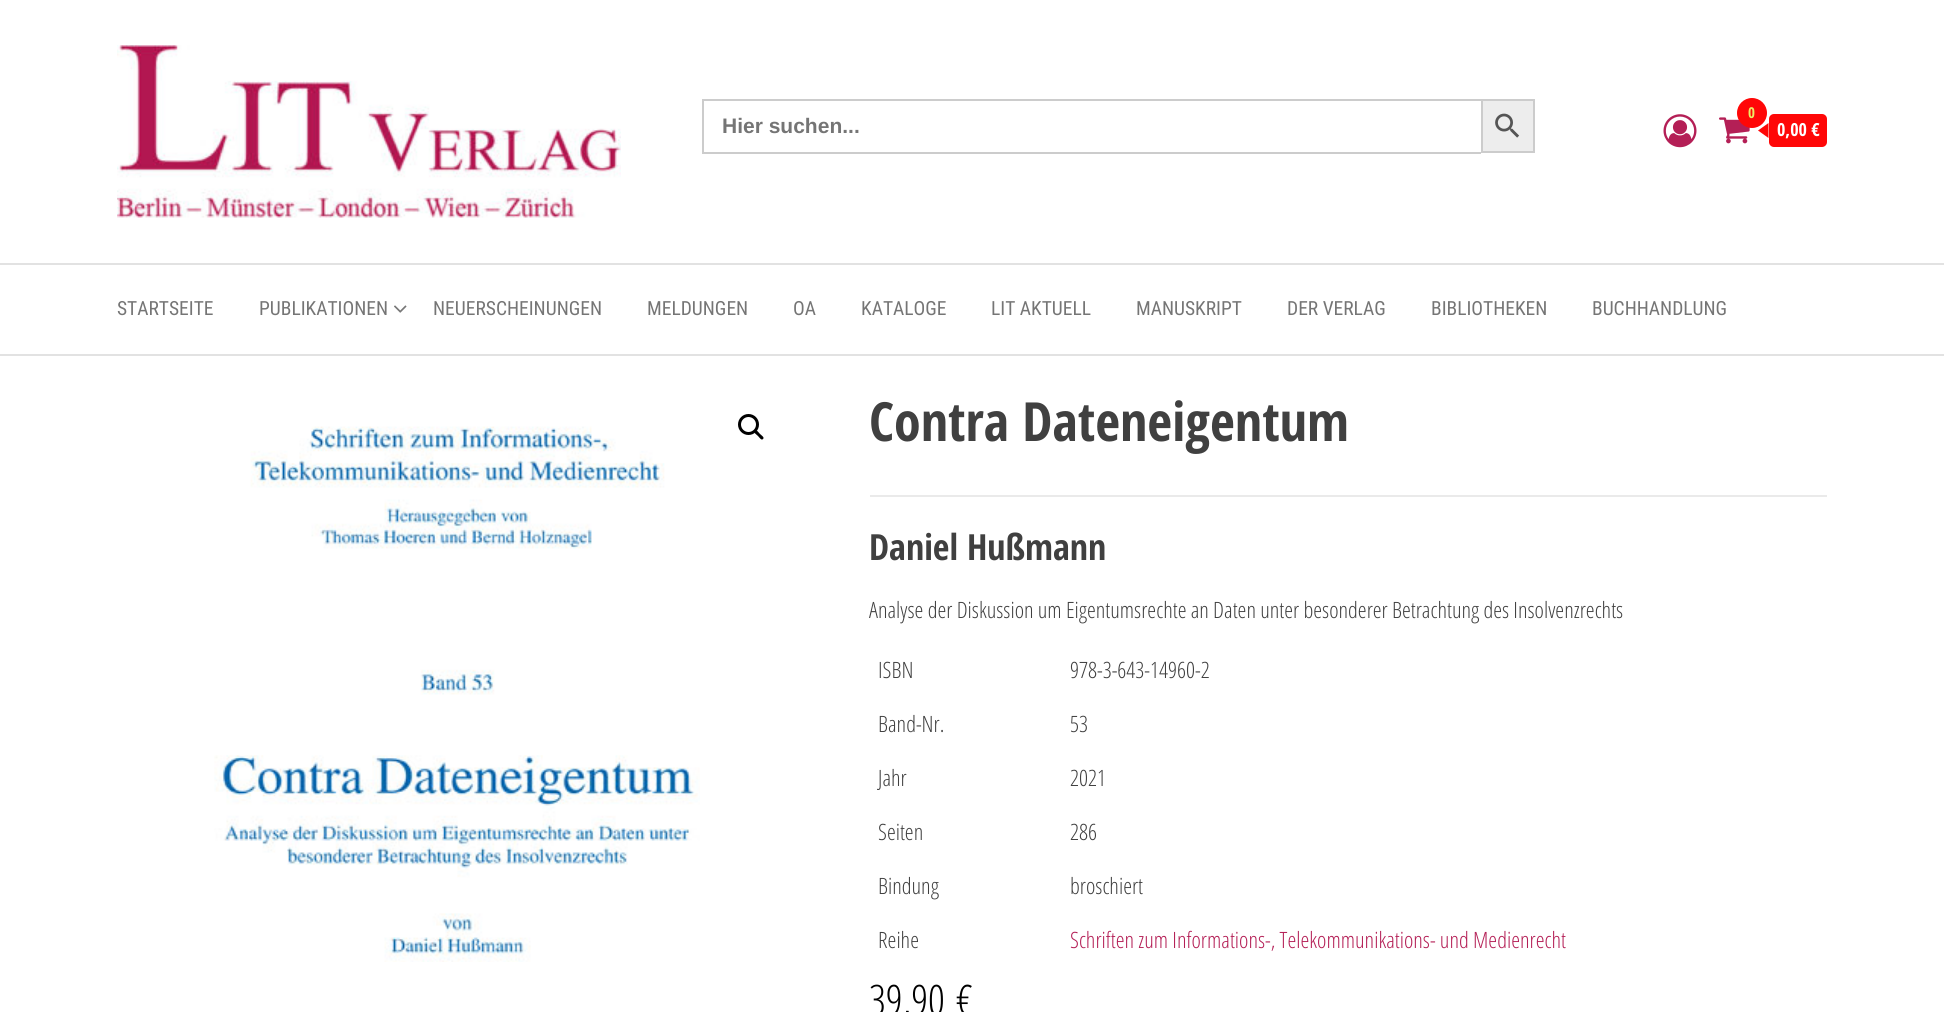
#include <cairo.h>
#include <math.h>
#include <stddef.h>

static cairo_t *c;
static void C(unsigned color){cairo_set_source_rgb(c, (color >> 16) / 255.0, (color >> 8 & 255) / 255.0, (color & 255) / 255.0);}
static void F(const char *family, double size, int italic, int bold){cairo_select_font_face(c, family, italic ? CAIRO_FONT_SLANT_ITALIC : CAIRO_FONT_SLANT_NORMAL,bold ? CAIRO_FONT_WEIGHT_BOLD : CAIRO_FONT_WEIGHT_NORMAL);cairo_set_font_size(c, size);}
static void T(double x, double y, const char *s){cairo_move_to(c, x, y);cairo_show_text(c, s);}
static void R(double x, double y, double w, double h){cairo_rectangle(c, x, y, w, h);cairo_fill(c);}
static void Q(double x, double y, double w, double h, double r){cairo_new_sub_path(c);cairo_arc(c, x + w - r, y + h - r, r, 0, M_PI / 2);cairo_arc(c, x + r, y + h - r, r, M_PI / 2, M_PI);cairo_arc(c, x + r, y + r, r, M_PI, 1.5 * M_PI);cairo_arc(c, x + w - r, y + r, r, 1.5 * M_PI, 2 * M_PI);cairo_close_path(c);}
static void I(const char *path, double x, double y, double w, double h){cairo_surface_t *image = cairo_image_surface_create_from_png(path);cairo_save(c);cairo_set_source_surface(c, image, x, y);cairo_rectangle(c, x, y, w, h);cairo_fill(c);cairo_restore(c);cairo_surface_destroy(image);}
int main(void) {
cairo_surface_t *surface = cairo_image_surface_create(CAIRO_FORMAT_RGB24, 1944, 1012);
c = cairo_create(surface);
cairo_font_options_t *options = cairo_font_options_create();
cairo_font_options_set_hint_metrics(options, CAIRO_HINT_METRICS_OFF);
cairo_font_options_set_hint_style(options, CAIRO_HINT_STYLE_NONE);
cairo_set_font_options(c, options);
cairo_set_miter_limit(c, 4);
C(0xffffff);
cairo_paint(c);
I("1.png",117,45,504,173);
C(0xcccccc);
R(702,99,779,2);
R(702,152,779,2);
R(702,99,2,54);
F("Liberation Sans",21,0,1);
C(0x757575);
T(722,133,"Hier suchen...");
C(0xededed);
cairo_rectangle(c,1482,100,52,52);
cairo_fill_preserve(c);
C(0xcccccc);
cairo_stroke(c);
I("2.png",1495,113,25,25);
I("3.png",1663,114,34,34);
I("4.png",1719,117,31,27);
C(0xff0707);
cairo_arc(c,1752,113,15,0,2 * M_PI);
cairo_fill(c);
F("Open Sans Condensed",15,0,1);
C(0xeded65);
T(1748,118,"0");
C(0xff0707);
Q(1769,114,58,33,5);
cairo_fill(c);
cairo_new_path(c);
cairo_move_to(c,1768.5,123);
cairo_line_to(c,1768.5,138);
cairo_line_to(c,1758,130.5);
cairo_close_path(c);
cairo_fill(c);
F("Open Sans Condensed",18,0,1);
C(0xffffff);
T(1777,136,"0,00 €");
C(0xe2e2e2);
R(0,263,1944,2);
R(0,354,1944,2);
F("Roboto Condensed",19.5,0,0);
C(0x757575);
T(117,315,"STARTSEITE");
T(259,315,"PUBLIKATIONEN");
I("5.png",394,305,13,8);
T(433,315,"NEUERSCHEINUNGEN");
T(647,315,"MELDUNGEN");
T(793,315,"OA");
T(861,315,"KATALOGE");
T(991,315,"LIT AKTUELL");
T(1136,315,"MANUSKRIPT");
T(1287,315,"DER VERLAG");
T(1431,315,"BIBLIOTHEKEN");
T(1592,315,"BUCHHANDLUNG");
I("6.png",214,426,486,536);
cairo_arc(c,748.5,424.5,9,0,2 * M_PI);
C(0x000000);
cairo_set_line_width(c,3);
cairo_stroke(c);
cairo_new_path(c);
cairo_move_to(c,755,431);
cairo_curve_to(c,756.5,429,759,433,760,434);
cairo_curve_to(c,761,435,765,437.5,763,439);
cairo_curve_to(c,761.5,441,759,437,758,436);
cairo_curve_to(c,757,435,753,432.5,755,431);
cairo_close_path(c);
cairo_fill(c);
C(0xeaeaea);
R(870,495,957,2);
F("Open Sans Condensed",54,0,1);
C(0x404040);
T(869,441,"Contra Dateneigentum");
F("Open Sans Condensed",36,0,1);
T(869,560,"Daniel Hußmann");
F("Open Sans Condensed Light",22.5,0,0);
T(869,618,"Analyse der Diskussion um Eigentumsrechte an Daten unter besonderer Betrachtung des Insolvenzrechts");
T(878,678,"ISBN");
T(1070,678,"978-3-643-14960-2");
T(878,732,"Band-Nr.");
T(1070,732,"53");
T(878,786,"Jahr");
T(1070,786,"2021");
T(878,840,"Seiten");
T(1070,840,"286");
T(878,894,"Bindung");
T(1070,894,"broschiert");
T(878,948,"Reihe");
C(0xb41f56);
T(1070,948,"Schriften zum Informations-, Telekommunikations- und Medienrecht");
F("Open Sans Condensed Light",42,0,0);
C(0x000000);
T(869,1015,"39,90");
T(956,1015,"€");
cairo_surface_write_to_png(surface, "o.png");
cairo_font_options_destroy(options);
cairo_destroy(c);
cairo_surface_destroy(surface);
return 0;
}
